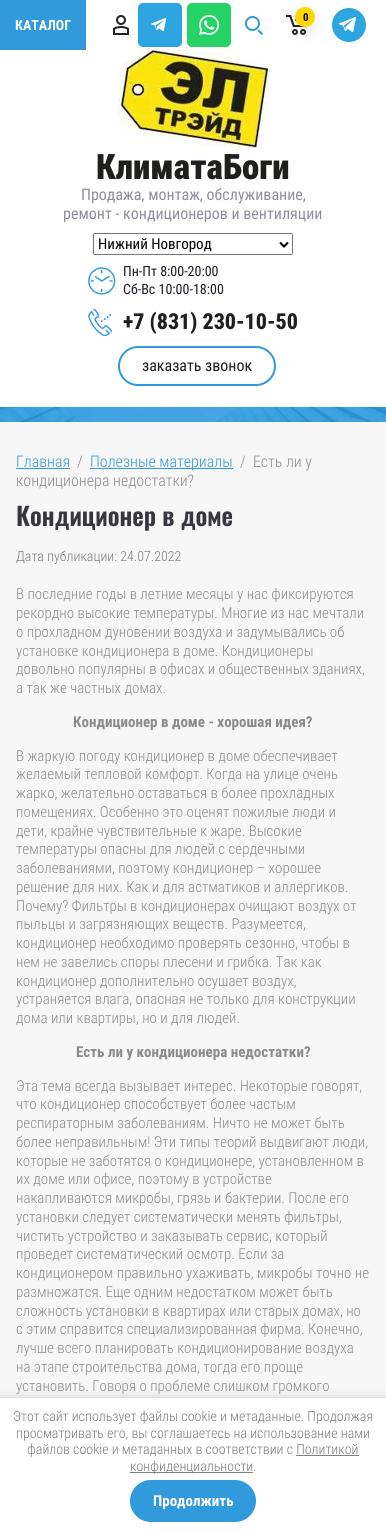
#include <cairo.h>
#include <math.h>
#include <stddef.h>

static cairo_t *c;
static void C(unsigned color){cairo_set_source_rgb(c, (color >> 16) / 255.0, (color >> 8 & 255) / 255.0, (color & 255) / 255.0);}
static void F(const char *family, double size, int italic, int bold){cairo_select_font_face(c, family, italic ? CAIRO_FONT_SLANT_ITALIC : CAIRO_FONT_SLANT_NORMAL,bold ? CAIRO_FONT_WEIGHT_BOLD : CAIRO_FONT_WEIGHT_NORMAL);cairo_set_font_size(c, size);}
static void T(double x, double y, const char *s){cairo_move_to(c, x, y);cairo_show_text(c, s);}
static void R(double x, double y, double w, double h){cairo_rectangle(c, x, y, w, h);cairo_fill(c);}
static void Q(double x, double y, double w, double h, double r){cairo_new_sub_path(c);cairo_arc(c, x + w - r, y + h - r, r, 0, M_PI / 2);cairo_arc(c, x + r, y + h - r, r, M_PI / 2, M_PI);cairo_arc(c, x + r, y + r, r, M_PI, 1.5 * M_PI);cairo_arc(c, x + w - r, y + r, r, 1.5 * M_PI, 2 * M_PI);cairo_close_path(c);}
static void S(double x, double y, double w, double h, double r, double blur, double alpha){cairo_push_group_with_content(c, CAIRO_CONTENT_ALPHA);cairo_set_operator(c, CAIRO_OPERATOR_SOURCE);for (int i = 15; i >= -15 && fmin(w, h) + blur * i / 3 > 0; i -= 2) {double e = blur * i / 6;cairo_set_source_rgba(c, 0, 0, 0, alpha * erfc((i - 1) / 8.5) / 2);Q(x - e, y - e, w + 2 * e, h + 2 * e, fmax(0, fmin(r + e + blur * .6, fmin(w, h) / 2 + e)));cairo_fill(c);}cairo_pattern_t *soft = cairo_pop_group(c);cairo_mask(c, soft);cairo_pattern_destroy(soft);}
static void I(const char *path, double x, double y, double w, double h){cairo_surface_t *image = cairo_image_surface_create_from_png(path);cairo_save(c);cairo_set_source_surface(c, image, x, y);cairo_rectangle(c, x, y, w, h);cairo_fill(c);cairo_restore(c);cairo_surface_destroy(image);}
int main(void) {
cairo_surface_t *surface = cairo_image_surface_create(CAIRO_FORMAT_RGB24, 386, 1532);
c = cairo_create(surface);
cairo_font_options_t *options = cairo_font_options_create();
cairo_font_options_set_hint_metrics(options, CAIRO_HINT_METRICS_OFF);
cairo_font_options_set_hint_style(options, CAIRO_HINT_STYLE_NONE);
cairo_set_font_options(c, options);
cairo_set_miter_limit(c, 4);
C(0xf7f7f7);
cairo_paint(c);
C(0xffffff);
R(86,0,300,50);
C(0x319add);
R(0,0,86,50);
F("Roboto Condensed",14,0,1);
C(0xffffff);
T(15,30,"КАТАЛОГ");
I("1.png",113,15,16,20);
C(0x2ca5e0);
Q(138,3,44,44,5);
cairo_fill(c);
I("2.png",151,18,16,14);
C(0x25d266);
Q(187,3,44,44,5);
cairo_fill(c);
I("3.png",199,15,20,20);
I("4.png",245,16,18,19);
I("5.png",286,15,21,20);
I("6.png",332,8,34,34);
C(0xffffff);
R(0,50,386,357);
C(0x000000);
S(295,14,20,20,10,6.5,.07);
C(0xffd800);
cairo_arc(c,305,17,10,0,2 * M_PI);
cairo_fill(c);
F("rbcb",11,0,1);
C(0x000000);
T(303,21,"0");
C(0xf2f2f2);
R(16,406,354,1);
I("7.png",118,50,150,98);
F("Roboto Condensed Black",35,0,0);
C(0x1f201d);
T(96,179,"КлиматаБоги");
F("Roboto Condensed",16,0,0);
C(0x8f8f9d);
T(81,200,"Продажа, монтаж, обслуживание,");
T(63,219,"ремонт - кондиционеров и вентиляции");
Q(93.5,233.5,199,21,1.5);
C(0x767676);
cairo_set_line_width(c,1);
cairo_stroke(c);
cairo_new_path(c);
cairo_move_to(c,280,242.5);
cairo_line_to(c,284,246.5);
cairo_line_to(c,288,242.5);
C(0x000000);
cairo_set_line_width(c,2);
cairo_stroke(c);
F("Roboto Condensed",15,0,0);
T(98,249,"Нижний Новгород");
I("8.png",88,267,28,28);
F("Roboto Condensed",14,0,0);
C(0x211824);
T(123,276,"Пн-Пт 8:00-20:00");
T(123,294,"Сб-Вс 10:00-18:00");
I("9.png",88,308,24,28);
F("Roboto Condensed ExtraBold",22,0,0);
C(0x1f201d);
T(123,329,"+7 (831) 230-10-50");
Q(119,347,156,38,19);
C(0x319add);
cairo_stroke(c);
F("Roboto Condensed",16,0,0);
C(0x1f201d);
T(142,371,"заказать звонок");
I("10.png",0,407,386,15);
F("Roboto Condensed Light",16,0,0);
C(0x319add);
T(16,467,"Главная");
R(16,468,54,1);
C(0x8a8a8a);
T(77,467,"/");
C(0x319add);
R(90,468,143,1);
T(90,467,"Полезные материалы");
C(0x8a8a8a);
T(240,467,"/  Есть ли у");
T(16,486,"кондиционера недостатки?");
F("Oswald SemiBold",25,0,0);
C(0x373740);
T(16,526,"Кондиционер в доме");
F("Roboto Condensed Light",14,0,0);
C(0x7b7b7b);
T(16,561,"Дата публикации: 24.07.2022");
F("Roboto Condensed Light",15,0,0);
C(0x8a8a8a);
T(16,599,"В последние годы в летние месяцы у нас фиксируются");
T(16,618,"рекордно высокие температуры. Многие из нас мечтали");
T(16,637,"о прохладном дуновении воздуха и задумывались об");
T(16,656,"установке кондиционера в доме. Кондиционеры");
T(16,674,"довольно популярны в офисах и общественных зданиях,");
T(16,693,"а так же частных домах.");
F("rbcb",15,0,1);
T(73,727,"Кондиционер в доме - хорошая идея?");
F("Roboto Condensed Light",15,0,0);
T(16,761,"В жаркую погоду кондиционер в доме обеспечивает");
T(16,779,"желаемый тепловой комфорт. Когда на улице очень");
T(16,798,"жарко, желательно оставаться в более прохладных");
T(16,817,"помещениях. Особенно это оценят пожилые люди и");
T(16,836,"дети, крайне чувствительные к жаре. Высокие");
T(16,854,"температуры опасны для людей с сердечными");
T(16,873,"заболеваниями, поэтому кондиционер – хорошее");
T(16,892,"решение для них. Как и для астматиков и аллергиков.");
T(16,911,"Почему? Фильтры в кондиционерах очищают воздух от");
T(16,929,"пыльцы и загрязняющих веществ. Разумеется,");
T(16,948,"кондиционер необходимо проверять сезонно, чтобы в");
T(16,967,"нем не завелись споры плесени и грибка. Так как");
T(16,986,"кондиционер дополнительно осушает воздух,");
T(16,1004,"устраняется влага, опасная не только для конструкции");
T(16,1023,"дома или квартиры, но и для людей.");
F("rbcb",15,0,1);
T(76,1057,"Есть ли у кондиционера недостатки?");
F("Roboto Condensed Light",15,0,0);
T(16,1091,"Эта тема всегда вызывает интерес. Некоторые говорят,");
T(16,1109,"что кондиционер способствует более частым");
T(16,1128,"респираторным заболеваниям. Ничто не может быть");
T(16,1147,"более неправильным! Эти типы теорий выдвигают люди,");
T(16,1166,"которые не заботятся о кондиционере, установленном в");
T(16,1184,"их доме или офисе, поэтому в устройстве");
T(16,1203,"накапливаются микробы, грязь и бактерии. После его");
T(16,1222,"установки следует систематически менять фильтры,");
T(16,1241,"чистить устройство и заказывать сервис, который");
T(16,1259,"проведет систематический осмотр. Если за");
T(16,1278,"кондиционером правильно ухаживать, микробы точно не");
T(16,1297,"размножатся. Еще одним недостатком может быть");
T(16,1316,"сложность установки в квартирах или старых домах, но");
T(16,1334,"с этим справится специализированная фирма. Конечно,");
T(16,1353,"лучше всего планировать кондиционирование воздуха");
T(16,1372,"на этапе строительства дома, тогда его проще");
T(16,1391,"установить. Говоря о проблеме слишком громкого");
C(0x000000);
S(0,1399,386,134,0,5,.23);
C(0xffffff);
R(0,1398,386,134);
F("Roboto Condensed Light",14,0,0);
C(0x7b7b7b);
T(13,1421,"Этот сайт использует файлы cookie и метаданные. Продолжая");
T(16,1438,"просматривать его, вы соглашаетесь на использование нами");
T(27,1454,"файлов cookie и метаданных в соответствии с Политикой");
C(0x808080);
R(130,1472,123,1);
C(0x7b7b7b);
T(130,1471,"конфиденциальности.");
C(0x808080);
R(296,1455,63,1);
C(0x319add);
Q(130,1480,126,42,21);
cairo_fill(c);
F("rbcb",15,0,1);
C(0xffffff);
T(153,1506,"Продолжить");
cairo_surface_write_to_png(surface, "o.png");
cairo_font_options_destroy(options);
cairo_destroy(c);
cairo_surface_destroy(surface);
return 0;
}
